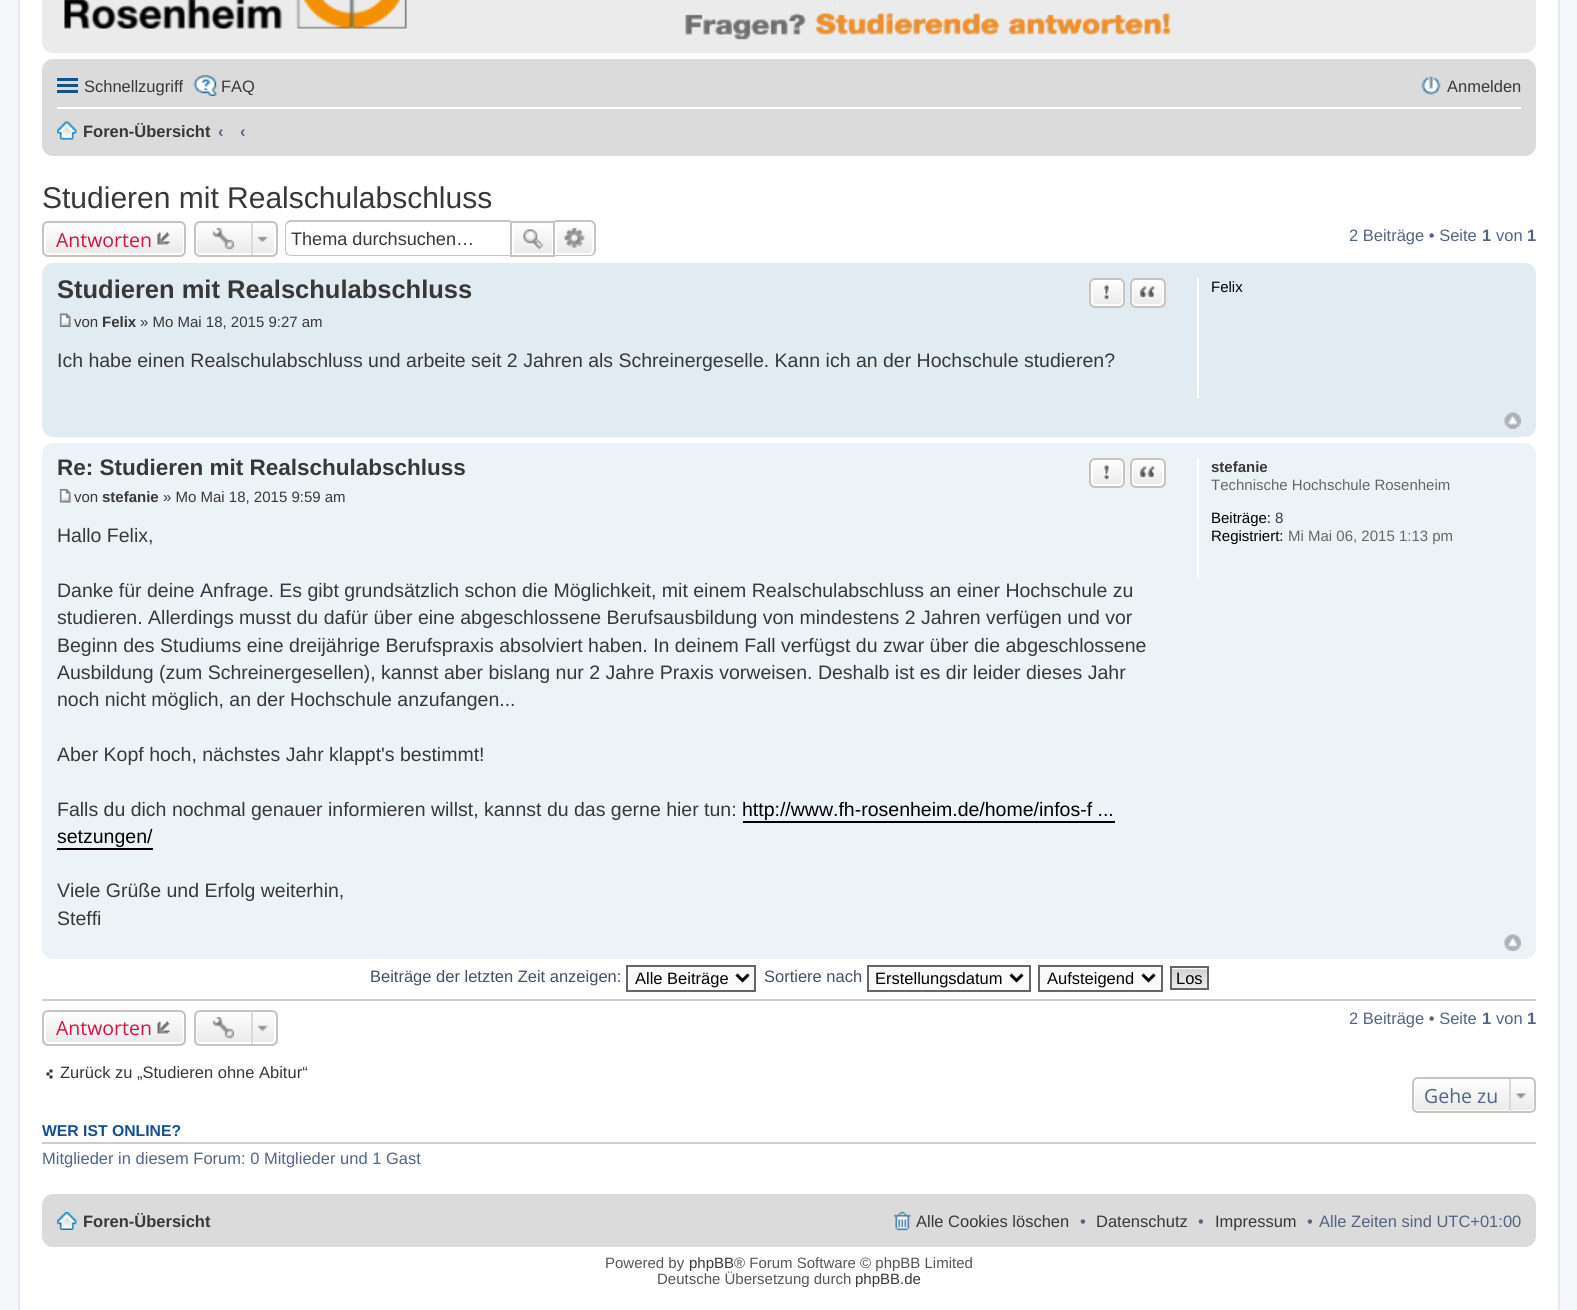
#include <cairo.h>
#include <math.h>
#include <stddef.h>

static cairo_t *c;
static void C(unsigned color){cairo_set_source_rgb(c, (color >> 16) / 255.0, (color >> 8 & 255) / 255.0, (color & 255) / 255.0);}
static void F(const char *family, double size, int italic, int bold){cairo_select_font_face(c, family, italic ? CAIRO_FONT_SLANT_ITALIC : CAIRO_FONT_SLANT_NORMAL,bold ? CAIRO_FONT_WEIGHT_BOLD : CAIRO_FONT_WEIGHT_NORMAL);cairo_set_font_size(c, size);}
static void T(double x, double y, const char *s){cairo_move_to(c, x, y);cairo_show_text(c, s);}
static void R(double x, double y, double w, double h){cairo_rectangle(c, x, y, w, h);cairo_fill(c);}
static void Q(double x, double y, double w, double h, double r){cairo_new_sub_path(c);cairo_arc(c, x + w - r, y + h - r, r, 0, M_PI / 2);cairo_arc(c, x + r, y + h - r, r, M_PI / 2, M_PI);cairo_arc(c, x + r, y + r, r, M_PI, 1.5 * M_PI);cairo_arc(c, x + w - r, y + r, r, 1.5 * M_PI, 2 * M_PI);cairo_close_path(c);}
static void I(const char *path, double x, double y, double w, double h){cairo_surface_t *image = cairo_image_surface_create_from_png(path);cairo_save(c);cairo_set_source_surface(c, image, x, y);cairo_rectangle(c, x, y, w, h);cairo_fill(c);cairo_restore(c);cairo_surface_destroy(image);}
int main(void) {
cairo_surface_t *surface = cairo_image_surface_create(CAIRO_FORMAT_RGB24, 1577, 1310);
c = cairo_create(surface);
cairo_font_options_t *options = cairo_font_options_create();
cairo_font_options_set_hint_metrics(options, CAIRO_HINT_METRICS_OFF);
cairo_font_options_set_hint_style(options, CAIRO_HINT_STYLE_NONE);
cairo_set_font_options(c, options);
cairo_set_miter_limit(c, 4);
cairo_pattern_t *gradient;
C(0xf5f7fa);
cairo_paint(c);
C(0xffffff);
Q(19,-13,1540,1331,11);
cairo_fill_preserve(c);
C(0xe6e9ed);
cairo_stroke(c);
C(0xebebeb);
Q(42,-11,1494,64,11);
cairo_fill(c);
I("1.png",64,0,1107,40);
C(0xdbdbdb);
Q(42,59,1494,97,11);
cairo_fill(c);
C(0x105289);
R(57,78,21,3);
R(57,84,21,3);
R(57,90,21,3);
F("Liberation Sans",16.5,0,0);
C(0x383838);
T(84,92,"Schnellzugriff");
I("2.png",193,75,25,21);
T(221,92,"FAQ");
I("3.png",1421,76,20,19);
T(1447,92,"Anmelden");
C(0xffffff);
R(57,107,1464,2);
I("4.png",57,121,20,19);
F("Liberation Sans",16.5,0,1);
C(0x383838);
T(83,137,"Foren-Übersicht");
C(0x536482);
T(218,137,"‹");
T(240,137,"‹");
F("Liberation Sans",30,0,0);
C(0x383838);
T(42,208,"Studieren mit Realschulabschluss");
cairo_save(c);
Q(42,221,144,36,6);
cairo_clip(c);
gradient = cairo_pattern_create_linear(114,222,114,255);
cairo_pattern_add_color_stop_rgba(gradient,0,1,1,1,1);
cairo_pattern_add_color_stop_rgba(gradient,1,0.914,0.914,0.914,1);
cairo_set_source(c,gradient);
cairo_pattern_destroy(gradient);
R(42,222,144,33);
cairo_restore(c);
Q(45,223,139,31,4);
C(0xffffff);
cairo_stroke(c);
Q(43,222,142,34,5);
C(0xc7c3bf);
cairo_stroke(c);
F("Open Sans",19.5,0,0);
C(0xd31141);
T(56,247,"Antworten");
I("5.png",157,232,13,14);
cairo_save(c);
Q(194,221,84,36,6);
cairo_clip(c);
gradient = cairo_pattern_create_linear(236,222,236,255);
cairo_pattern_add_color_stop_rgba(gradient,0,1,1,1,1);
cairo_pattern_add_color_stop_rgba(gradient,1,0.914,0.914,0.914,1);
cairo_set_source(c,gradient);
cairo_pattern_destroy(gradient);
R(194,222,84,33);
cairo_restore(c);
Q(196,223,79,31,4);
C(0xffffff);
cairo_stroke(c);
Q(195,222,82,34,5);
C(0xc7c3bf);
cairo_stroke(c);
I("6.png",212,228,22,22);
I("7.png",257,236,11,7);
C(0xdadada);
R(251,222,2,33);
C(0xc7c3bf);
cairo_set_fill_rule(c,CAIRO_FILL_RULE_EVEN_ODD);
cairo_new_path(c);
cairo_move_to(c,291,220);
cairo_line_to(c,510,220);
cairo_line_to(c,510,256);
cairo_line_to(c,291,256);
cairo_curve_to(c,288,256,285,254,285,250);
cairo_line_to(c,285,226);
cairo_curve_to(c,285,223,288,220,291,220);
cairo_close_path(c);
cairo_move_to(c,291,222);
cairo_line_to(c,510,222);
cairo_line_to(c,510,255);
cairo_line_to(c,291,255);
cairo_curve_to(c,289,255,286,253,286,250);
cairo_line_to(c,286,226);
cairo_curve_to(c,286,224,289,222,291,222);
cairo_close_path(c);
cairo_fill(c);
F("Liberation Sans",18.1,0,0);
C(0x383838);
T(291,245,"Thema durchsuchen…");
gradient = cairo_pattern_create_linear(533,222,533,255);
cairo_pattern_add_color_stop_rgba(gradient,0,1,1,1,1);
cairo_pattern_add_color_stop_rgba(gradient,1,0.914,0.914,0.914,1);
cairo_set_source(c,gradient);
cairo_pattern_destroy(gradient);
R(514,226,38,27);
cairo_rectangle(c,511,222,43,34);
C(0xc7c3bf);
cairo_stroke(c);
I("8.png",523,229,21,21);
gradient = cairo_pattern_create_linear(575,222,575,255);
cairo_pattern_add_color_stop_rgba(gradient,0,1,1,1,1);
cairo_pattern_add_color_stop_rgba(gradient,1,0.914,0.914,0.914,1);
cairo_set_source(c,gradient);
cairo_pattern_destroy(gradient);
cairo_new_path(c);
cairo_move_to(c,556,223);
cairo_line_to(c,589,223);
cairo_curve_to(c,591,223,593,225,593,227);
cairo_line_to(c,593,250);
cairo_curve_to(c,593,252,591,254,589,254);
cairo_line_to(c,556,254);
cairo_close_path(c);
cairo_fill_preserve(c);
C(0xffffff);
cairo_stroke(c);
C(0xc7c3bf);
cairo_new_path(c);
cairo_move_to(c,555,220);
cairo_line_to(c,590,220);
cairo_curve_to(c,593,220,596,223,596,226);
cairo_line_to(c,596,250);
cairo_curve_to(c,596,254,593,256,590,256);
cairo_line_to(c,555,256);
cairo_close_path(c);
cairo_move_to(c,555,222);
cairo_line_to(c,590,222);
cairo_curve_to(c,592,222,594,224,594,226);
cairo_line_to(c,594,250);
cairo_curve_to(c,594,253,592,255,590,255);
cairo_line_to(c,555,255);
cairo_close_path(c);
cairo_fill(c);
I("9.png",563,228,23,20);
F("Liberation Sans",16.5,0,0);
C(0x536482);
T(1349,241,"2 Beiträge • Seite");
F("Liberation Sans",16.5,0,1);
T(1482,241,"1");
F("Liberation Sans",16.5,0,0);
T(1496,241,"von");
F("Liberation Sans",16.5,0,1);
T(1527,241,"1");
C(0xe1ebf2);
Q(42,263,1494,174,11);
cairo_fill(c);
F("Liberation Sans",25.5,0,1);
C(0x383838);
T(57,298,"Studieren mit Realschulabschluss");
cairo_save(c);
cairo_set_fill_rule(c,CAIRO_FILL_RULE_WINDING);
Q(1089,278,36,30,6);
cairo_clip(c);
gradient = cairo_pattern_create_linear(1107,279,1107,306);
cairo_pattern_add_color_stop_rgba(gradient,0,1,1,1,1);
cairo_pattern_add_color_stop_rgba(gradient,1,0.914,0.914,0.914,1);
cairo_set_source(c,gradient);
cairo_pattern_destroy(gradient);
R(1089,279,36,27);
cairo_restore(c);
Q(1092,280,31,25,4);
C(0xffffff);
cairo_stroke(c);
Q(1090,279,34,28,5);
C(0xc7c3bf);
cairo_stroke(c);
I("10.png",1103,284,7,16);
cairo_save(c);
cairo_set_fill_rule(c,CAIRO_FILL_RULE_WINDING);
Q(1130,278,36,30,6);
cairo_clip(c);
gradient = cairo_pattern_create_linear(1148,279,1148,306);
cairo_pattern_add_color_stop_rgba(gradient,0,1,1,1,1);
cairo_pattern_add_color_stop_rgba(gradient,1,0.914,0.914,0.914,1);
cairo_set_source(c,gradient);
cairo_pattern_destroy(gradient);
R(1130,279,36,27);
cairo_restore(c);
Q(1132,280,31,25,4);
C(0xffffff);
cairo_stroke(c);
Q(1131,279,34,28,5);
C(0xc7c3bf);
cairo_stroke(c);
I("11.png",1138,286,18,13);
I("12.png",59,313,12,14);
F("Liberation Sans",15,0,0);
C(0x383838);
T(74,327,"von");
F("Liberation Sans",15,0,1);
T(102,327,"Felix");
F("Liberation Sans",15,0,0);
T(140,327,"» Mo Mai 18, 2015 9:27 am");
F("Liberation Sans",19.5,0,0);
T(57,367,"Ich habe einen Realschulabschluss und arbeite seit 2 Jahren als Schreinergeselle. Kann ich an der Hochschule studieren?");
C(0xffffff);
R(1197,278,2,120);
F("Liberation Sans",15,0,0);
C(0x000000);
T(1211,292,"Felix");
I("13.png",1504,412,17,17);
C(0xecf3f7);
Q(42,443,1494,516,11);
cairo_fill(c);
F("Liberation Sans",22.5,0,1);
C(0x383838);
T(57,475,"Re: Studieren mit Realschulabschluss");
cairo_save(c);
cairo_set_fill_rule(c,CAIRO_FILL_RULE_WINDING);
Q(1089,458,36,30,6);
cairo_clip(c);
gradient = cairo_pattern_create_linear(1107,459,1107,486);
cairo_pattern_add_color_stop_rgba(gradient,0,1,1,1,1);
cairo_pattern_add_color_stop_rgba(gradient,1,0.914,0.914,0.914,1);
cairo_set_source(c,gradient);
cairo_pattern_destroy(gradient);
R(1089,459,36,27);
cairo_restore(c);
Q(1092,460,31,25,4);
C(0xffffff);
cairo_stroke(c);
Q(1090,459,34,28,5);
C(0xc7c3bf);
cairo_stroke(c);
I("10.png",1103,464,7,16);
cairo_save(c);
cairo_set_fill_rule(c,CAIRO_FILL_RULE_WINDING);
Q(1130,458,36,30,6);
cairo_clip(c);
gradient = cairo_pattern_create_linear(1148,459,1148,486);
cairo_pattern_add_color_stop_rgba(gradient,0,1,1,1,1);
cairo_pattern_add_color_stop_rgba(gradient,1,0.914,0.914,0.914,1);
cairo_set_source(c,gradient);
cairo_pattern_destroy(gradient);
R(1130,459,36,27);
cairo_restore(c);
Q(1132,460,31,25,4);
C(0xffffff);
cairo_stroke(c);
Q(1131,459,34,28,5);
C(0xc7c3bf);
cairo_stroke(c);
I("11.png",1138,466,18,13);
I("14.png",59,489,12,14);
F("Liberation Sans",15,0,0);
C(0x383838);
T(74,502,"von");
F("Liberation Sans",15,0,1);
T(102,502,"stefanie");
F("Liberation Sans",15,0,0);
T(163,502,"» Mo Mai 18, 2015 9:59 am");
F("Liberation Sans",19.5,0,0);
T(57,542,"Hallo Felix,");
T(57,597,"Danke für deine Anfrage. Es gibt grundsätzlich schon die Möglichkeit, mit einem Realschulabschluss an einer Hochschule zu");
T(57,624,"studieren. Allerdings musst du dafür über eine abgeschlossene Berufsausbildung von mindestens 2 Jahren verfügen und vor");
T(57,652,"Beginn des Studiums eine dreijährige Berufspraxis absolviert haben. In deinem Fall verfügst du zwar über die abgeschlossene");
T(57,679,"Ausbildung (zum Schreinergesellen), kannst aber bislang nur 2 Jahre Praxis vorweisen. Deshalb ist es dir leider dieses Jahr");
T(57,706,"noch nicht möglich, an der Hochschule anzufangen...");
T(57,761,"Aber Kopf hoch, nächstes Jahr klappt's bestimmt!");
T(57,816,"Falls du dich nochmal genauer informieren willst, kannst du das gerne hier tun:");
C(0x000000);
T(742,816,"http://www.fh-rosenheim.de/home/infos-f ...");
R(743,821,372,2);
T(57,843,"setzungen/");
R(57,848,96,2);
C(0x383838);
T(57,897,"Viele Grüße und Erfolg weiterhin,");
T(57,925,"Steffi");
C(0xffffff);
R(1197,458,2,120);
F("Liberation Sans",15,0,1);
C(0x383838);
T(1211,472,"stefanie");
F("Liberation Sans",15,0,0);
C(0x666666);
T(1211,490,"Technische Hochschule Rosenheim");
C(0x000000);
T(1211,523,"Beiträge:");
C(0x383838);
T(1275,523,"8");
C(0x000000);
T(1211,541,"Registriert:");
C(0x666666);
T(1288,541,"Mi Mai 06, 2015 1:13 pm");
I("15.png",1504,934,17,17);
F("Liberation Sans",16.5,0,0);
C(0x425067);
T(370,982,"Beiträge der letzten Zeit anzeigen:");
C(0xfafafa);
cairo_rectangle(c,627,966,128,25);
cairo_fill_preserve(c);
C(0x666666);
cairo_stroke(c);
cairo_new_path(c);
cairo_move_to(c,736.5,974.5);
cairo_line_to(c,742.5,980.5);
cairo_line_to(c,748.5,974.5);
C(0x000000);
cairo_set_line_width(c,3);
cairo_stroke(c);
T(635,984,"Alle Beiträge");
C(0x425067);
T(764,982,"Sortiere nach");
C(0xfafafa);
cairo_rectangle(c,868,966,162,25);
cairo_fill_preserve(c);
C(0x666666);
cairo_set_line_width(c,2);
cairo_stroke(c);
cairo_new_path(c);
cairo_move_to(c,1010.5,974.5);
cairo_line_to(c,1016.5,980.5);
cairo_line_to(c,1022.5,974.5);
C(0x000000);
cairo_set_line_width(c,3);
cairo_stroke(c);
T(875,984,"Erstellungsdatum");
C(0xfafafa);
cairo_rectangle(c,1039,966,123,25);
cairo_fill_preserve(c);
C(0x666666);
cairo_set_line_width(c,2);
cairo_stroke(c);
cairo_new_path(c);
cairo_move_to(c,1142.5,974.5);
cairo_line_to(c,1148.5,980.5);
cairo_line_to(c,1154.5,974.5);
C(0x000000);
cairo_set_line_width(c,3);
cairo_stroke(c);
T(1047,984,"Aufsteigend");
C(0xfafafa);
R(1172,968,35,1);
I("16.png",1172,969,35,19);
cairo_rectangle(c,1171,967,37,22);
C(0x666666);
cairo_set_line_width(c,2);
cairo_stroke(c);
C(0x000000);
T(1176,984,"Los");
C(0xcccccc);
R(42,999,1494,2);
cairo_save(c);
cairo_set_fill_rule(c,CAIRO_FILL_RULE_WINDING);
Q(42,1010,144,36,6);
cairo_clip(c);
gradient = cairo_pattern_create_linear(114,1011,114,1044);
cairo_pattern_add_color_stop_rgba(gradient,0,1,1,1,1);
cairo_pattern_add_color_stop_rgba(gradient,1,0.914,0.914,0.914,1);
cairo_set_source(c,gradient);
cairo_pattern_destroy(gradient);
R(42,1011,144,33);
cairo_restore(c);
Q(45,1012,139,31,4);
C(0xffffff);
cairo_stroke(c);
Q(43,1011,142,34,5);
C(0xc7c3bf);
cairo_stroke(c);
F("Open Sans",19.5,0,0);
C(0xd31141);
T(56,1035,"Antworten");
I("5.png",157,1021,13,14);
cairo_save(c);
cairo_set_fill_rule(c,CAIRO_FILL_RULE_WINDING);
Q(194,1010,84,36,6);
cairo_clip(c);
gradient = cairo_pattern_create_linear(236,1011,236,1044);
cairo_pattern_add_color_stop_rgba(gradient,0,1,1,1,1);
cairo_pattern_add_color_stop_rgba(gradient,1,0.914,0.914,0.914,1);
cairo_set_source(c,gradient);
cairo_pattern_destroy(gradient);
R(194,1011,84,33);
cairo_restore(c);
Q(196,1012,79,31,4);
C(0xffffff);
cairo_stroke(c);
Q(195,1011,82,34,5);
C(0xc7c3bf);
cairo_stroke(c);
I("6.png",212,1017,22,22);
I("17.png",257,1025,11,7);
C(0xdadada);
R(251,1011,2,33);
F("Liberation Sans",16.5,0,0);
C(0x536482);
T(1349,1024,"2 Beiträge • Seite");
F("Liberation Sans",16.5,0,1);
T(1482,1024,"1");
F("Liberation Sans",16.5,0,0);
T(1496,1024,"von");
F("Liberation Sans",16.5,0,1);
T(1527,1024,"1");
I("18.png",46,1069,7,10);
F("Liberation Sans",16.5,0,0);
C(0x383838);
T(60,1078,"Zurück zu „Studieren ohne Abitur“");
cairo_save(c);
cairo_set_fill_rule(c,CAIRO_FILL_RULE_WINDING);
Q(1412,1077,124,36,6);
cairo_clip(c);
gradient = cairo_pattern_create_linear(1474,1079,1474,1112);
cairo_pattern_add_color_stop_rgba(gradient,0,1,1,1,1);
cairo_pattern_add_color_stop_rgba(gradient,1,0.914,0.914,0.914,1);
cairo_set_source(c,gradient);
cairo_pattern_destroy(gradient);
R(1412,1079,124,33);
cairo_restore(c);
Q(1414,1080,120,31,4);
C(0xffffff);
cairo_stroke(c);
Q(1413,1078,122,34,5);
C(0xc7c3bf);
cairo_stroke(c);
F("Open Sans",19.5,0,0);
C(0x536482);
T(1424,1103,"Gehe zu");
I("19.png",1516,1093,10,6);
C(0xdadada);
R(1509,1079,2,33);
C(0xcccccc);
R(42,1142,1494,2);
F("Liberation Sans",15.75,0,1);
C(0x115098);
T(42,1136,"WER IST ONLINE?");
F("Liberation Sans",16.5,0,0);
C(0x536482);
T(42,1164,"Mitglieder in diesem Forum: 0 Mitglieder und 1 Gast");
C(0xdbdbdb);
Q(42,1194,1494,53,11);
cairo_fill(c);
I("20.png",57,1212,20,18);
F("Liberation Sans",16.5,0,1);
C(0x383838);
T(83,1227,"Foren-Übersicht");
I("21.png",893,1211,18,20);
F("Liberation Sans",16.5,0,0);
T(916,1227,"Alle Cookies löschen");
C(0x536482);
T(1080,1227,"•");
C(0x383838);
T(1096,1227,"Datenschutz");
C(0x536482);
T(1198,1227,"•");
C(0x383838);
T(1215,1227,"Impressum");
C(0x536482);
T(1307,1227,"•");
T(1319,1227,"Alle Zeiten sind UTC+01:00");
F("Liberation Sans",15,0,0);
C(0x555555);
T(605,1268,"Powered by");
C(0x383838);
T(689,1268,"phpBB");
C(0x555555);
T(734,1268,"® Forum Software © phpBB Limited");
T(657,1284,"Deutsche Übersetzung durch");
C(0x383838);
T(855,1284,"phpBB.de");
cairo_surface_write_to_png(surface, "o.png");
cairo_font_options_destroy(options);
cairo_destroy(c);
cairo_surface_destroy(surface);
return 0;
}
